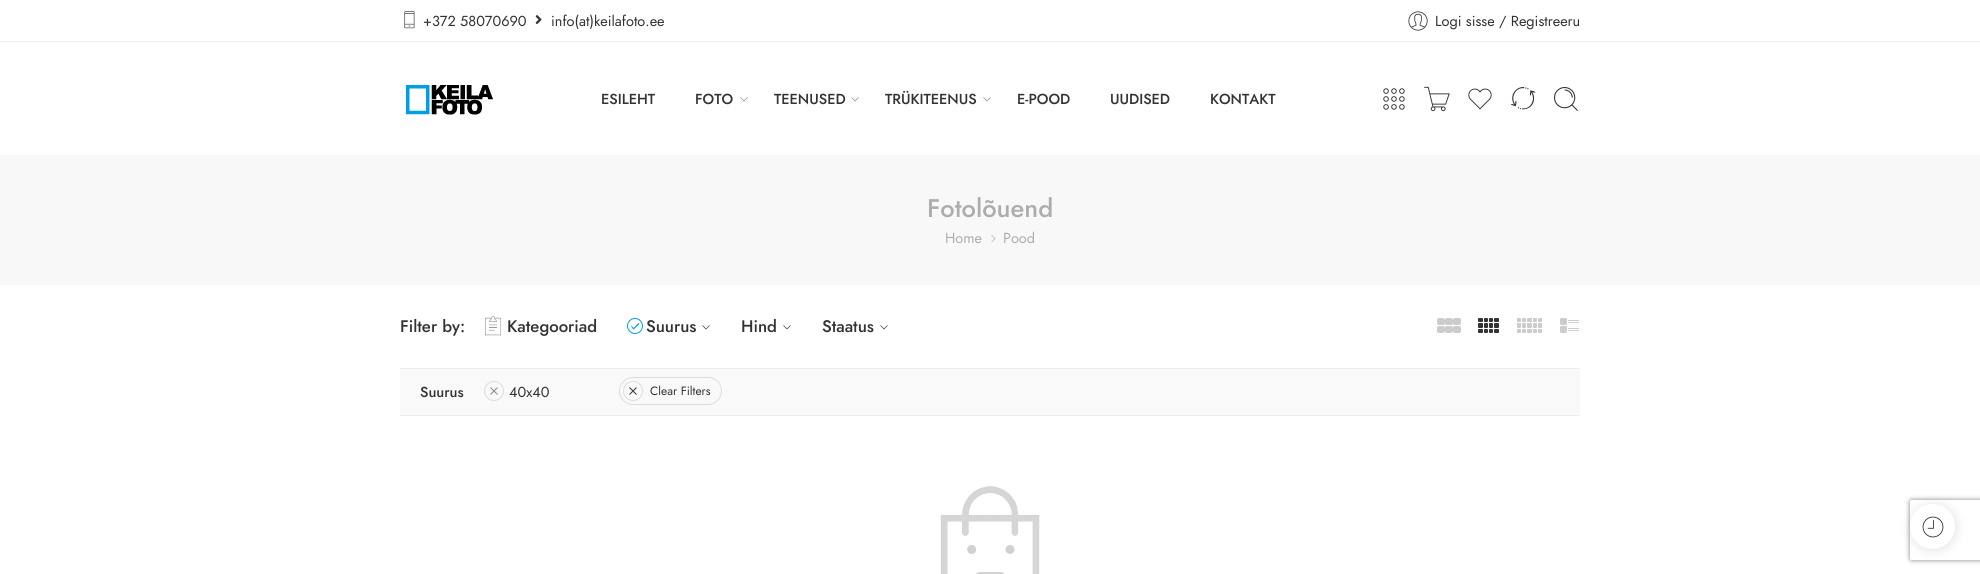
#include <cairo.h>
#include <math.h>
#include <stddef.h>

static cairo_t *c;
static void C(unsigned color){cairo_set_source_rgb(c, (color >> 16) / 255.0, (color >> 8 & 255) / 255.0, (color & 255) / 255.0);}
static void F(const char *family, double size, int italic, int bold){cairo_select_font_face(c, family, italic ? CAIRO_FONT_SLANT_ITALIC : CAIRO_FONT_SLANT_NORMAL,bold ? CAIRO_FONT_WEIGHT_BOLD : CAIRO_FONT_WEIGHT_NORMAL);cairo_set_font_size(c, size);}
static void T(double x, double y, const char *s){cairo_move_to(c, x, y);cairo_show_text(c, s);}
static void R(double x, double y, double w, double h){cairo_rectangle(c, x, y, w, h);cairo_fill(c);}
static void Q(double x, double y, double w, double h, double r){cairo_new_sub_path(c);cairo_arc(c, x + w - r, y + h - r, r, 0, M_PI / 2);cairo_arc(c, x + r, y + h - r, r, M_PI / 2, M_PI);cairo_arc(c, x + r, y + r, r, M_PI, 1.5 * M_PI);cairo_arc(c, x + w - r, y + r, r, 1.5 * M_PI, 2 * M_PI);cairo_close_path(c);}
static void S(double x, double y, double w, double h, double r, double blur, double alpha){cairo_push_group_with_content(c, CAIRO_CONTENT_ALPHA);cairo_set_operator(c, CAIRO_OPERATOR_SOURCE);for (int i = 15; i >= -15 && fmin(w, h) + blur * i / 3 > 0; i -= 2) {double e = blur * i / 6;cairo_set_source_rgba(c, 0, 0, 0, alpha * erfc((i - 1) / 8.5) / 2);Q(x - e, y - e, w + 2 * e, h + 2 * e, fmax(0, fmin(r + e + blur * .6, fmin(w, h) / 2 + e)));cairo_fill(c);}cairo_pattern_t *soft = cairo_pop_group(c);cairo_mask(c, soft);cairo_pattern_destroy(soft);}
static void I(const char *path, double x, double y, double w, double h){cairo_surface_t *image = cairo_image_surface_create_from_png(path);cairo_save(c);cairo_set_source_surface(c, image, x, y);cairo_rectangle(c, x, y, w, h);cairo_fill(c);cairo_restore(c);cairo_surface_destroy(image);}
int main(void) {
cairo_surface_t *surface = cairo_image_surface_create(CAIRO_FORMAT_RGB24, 1980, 574);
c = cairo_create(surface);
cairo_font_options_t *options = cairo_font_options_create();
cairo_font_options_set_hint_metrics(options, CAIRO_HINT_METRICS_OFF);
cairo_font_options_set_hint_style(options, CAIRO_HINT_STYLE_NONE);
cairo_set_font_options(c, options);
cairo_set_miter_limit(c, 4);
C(0xffffff);
cairo_paint(c);
C(0xececec);
R(0,41,1980,1);
I("1.png",404,11,11,18);
F("Jost",14.5,0,0);
C(0x333333);
T(423,26,"+372 58070690");
I("2.png",535,15,7,9);
T(551,26,"info(at)keilafoto.ee");
I("3.png",1408,11,20,20);
T(1435,26,"Logi sisse / Registreeru");
I("4.png",406,85,87,30);
F("Jost Medium",14.5,0,0);
T(601,104,"ESILEHT");
T(695,104,"FOTO");
I("5.png",740,97,8,5);
T(774,104,"TEENUSED");
I("5.png",851,97,8,5);
T(885,104,"TRÜKITEENUS");
I("5.png",983,97,8,5);
T(1017,104,"E-POOD");
T(1110,104,"UUDISED");
T(1210,104,"KONTAKT");
I("6.png",1383,88,22,22);
I("7.png",1424,86,26,26);
I("8.png",1468,88,24,22);
I("9.png",1511,87,25,23);
I("10.png",1554,87,24,24);
C(0xf8f8f8);
R(0,155,1980,130);
F("Jost Medium",25.5,0,0);
C(0xadadad);
T(927,217,"Fotolõuend");
F("Jost",14.5,0,0);
T(945,243,"Home");
I("11.png",991,235,5,8);
T(1003,243,"Pood");
F("Jost Medium",16.75,0,0);
C(0x333333);
T(400,332,"Filter by:");
I("12.png",485,316,16,20);
T(507,332,"Kategooriad");
cairo_new_path(c);
cairo_arc(c,635,326,7.5,0,2 * M_PI);
C(0x009fe3);
cairo_set_line_width(c,1);
cairo_stroke(c);
C(0x333333);
T(646,332,"Suurus");
C(0x009fe3);
cairo_new_path(c);
cairo_move_to(c,638.5,323);
cairo_line_to(c,639.5,324);
cairo_line_to(c,633.5,329.5);
cairo_line_to(c,633,328.5);
cairo_close_path(c);
cairo_fill(c);
cairo_new_path(c);
cairo_move_to(c,631.5,326);
cairo_line_to(c,634.5,328.5);
cairo_line_to(c,633.5,329.5);
cairo_line_to(c,631,326.5);
cairo_close_path(c);
cairo_fill(c);
I("13.png",702,325,8,5);
C(0x333333);
T(741,332,"Hind");
I("13.png",783,325,8,5);
T(822,332,"Staatus");
I("13.png",880,325,8,5);
I("14.png",1437,318,24,15);
I("15.png",1478,318,21,15);
I("16.png",1517,318,25,15);
I("17.png",1560,318,19,15);
C(0xf9f9f9);
R(400,369,1180,46);
C(0xeeeeee);
R(400,368,1180,1);
R(400,415,1180,1);
F("Jost Medium",14.5,0,0);
C(0x333333);
T(420,397,"Suurus");
cairo_new_path(c);
cairo_arc(c,494,391,9.5,0,2 * M_PI);
C(0xdddddd);
cairo_stroke(c);
F("Jost",14.5,0,0);
C(0x333333);
T(509,397,"40x40");
I("18.png",490,387,8,8);
Q(619.5,377.5,102,27,13.5);
C(0xdddddd);
cairo_stroke(c);
cairo_arc(c,633,391,9.5,0,2 * M_PI);
cairo_stroke(c);
F("Jost",12,0,0);
C(0x333333);
T(650,395,"Clear Filters");
I("19.png",629,387,8,8);
I("20.png",940,486,100,88);
C(0x000000);
S(1910,504,47,47,23.5,5,.1);
cairo_save(c);
cairo_set_fill_rule(c,CAIRO_FILL_RULE_EVEN_ODD);
cairo_new_path(c);
cairo_move_to(c,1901,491);
cairo_line_to(c,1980,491);
cairo_line_to(c,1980,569);
cairo_line_to(c,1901,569);
cairo_close_path(c);
cairo_move_to(c,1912,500);
cairo_line_to(c,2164,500);
cairo_curve_to(c,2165,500,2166,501,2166,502);
cairo_line_to(c,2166,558);
cairo_curve_to(c,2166,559,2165,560,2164,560);
cairo_line_to(c,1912,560);
cairo_curve_to(c,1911,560,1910,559,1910,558);
cairo_line_to(c,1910,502);
cairo_curve_to(c,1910,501,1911,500,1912,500);
cairo_close_path(c);
cairo_clip(c);
C(0x808080);
S(1910,500,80,60,2,2.5,1);
cairo_restore(c);
C(0xffffff);
cairo_arc(c,1932.5,526.5,22.5,0,2 * M_PI);
cairo_fill(c);
I("21.png",1922,516,22,22);
cairo_surface_write_to_png(surface, "o.png");
cairo_font_options_destroy(options);
cairo_destroy(c);
cairo_surface_destroy(surface);
return 0;
}
